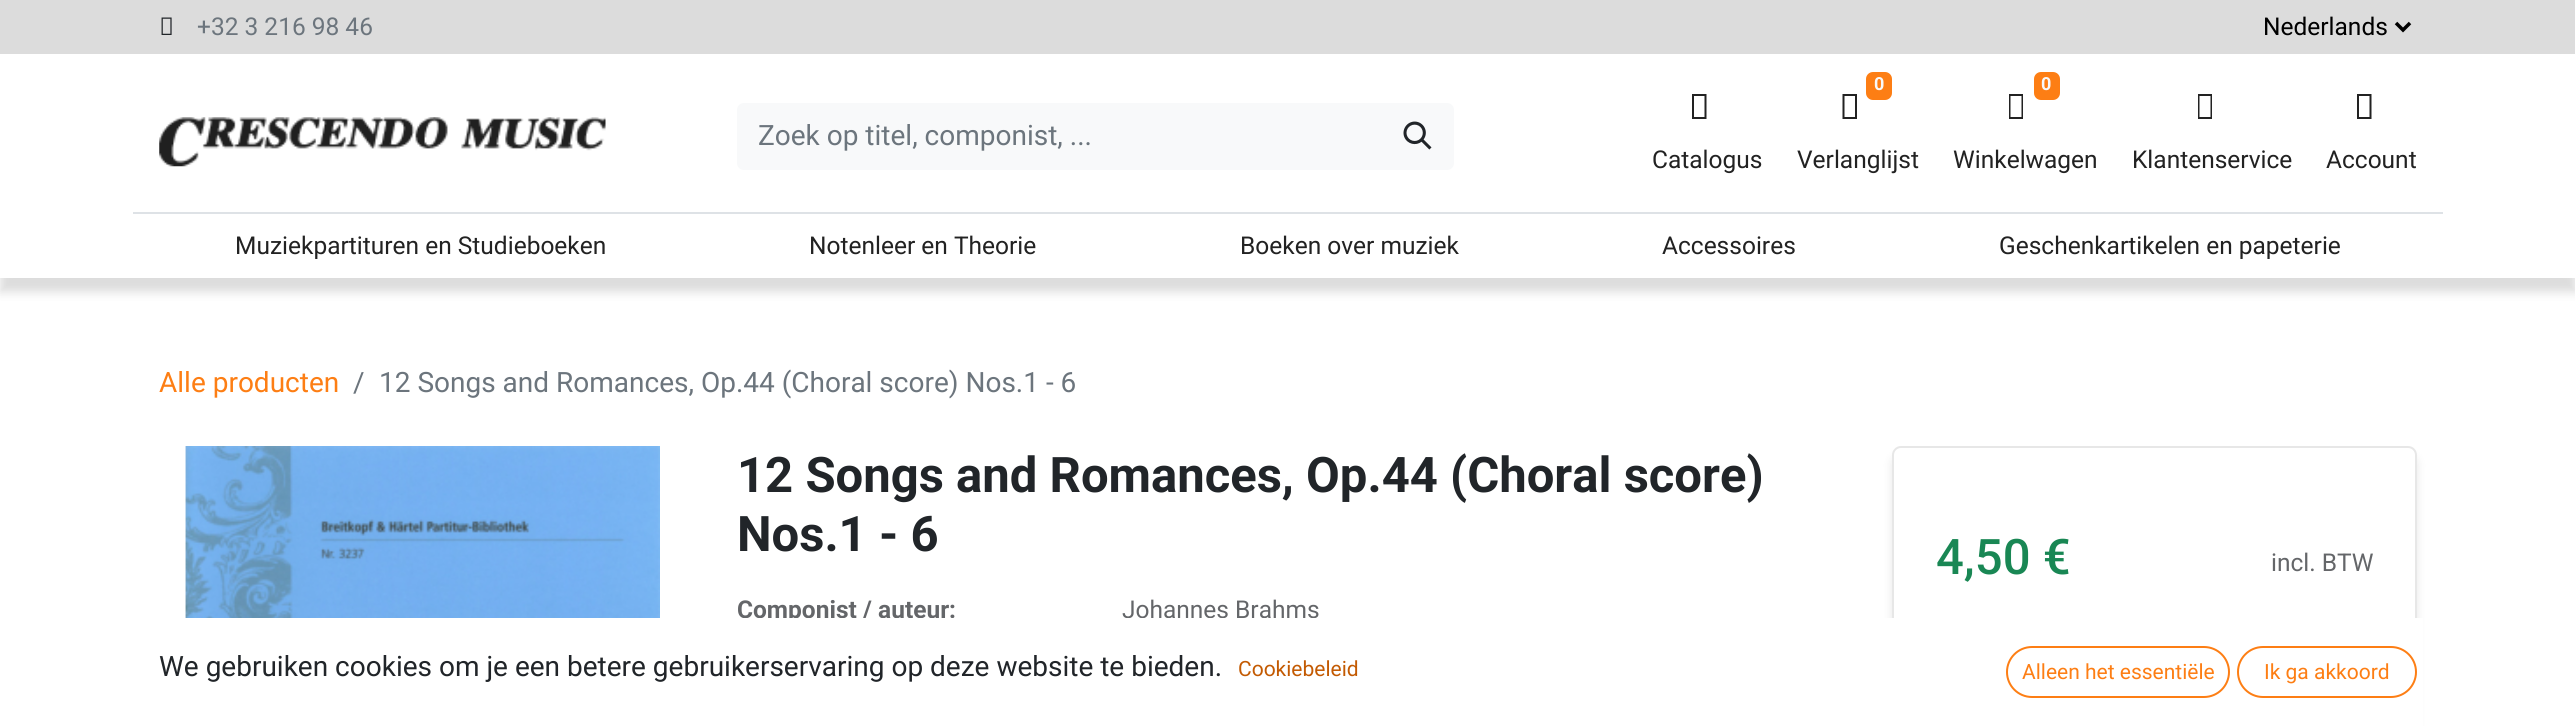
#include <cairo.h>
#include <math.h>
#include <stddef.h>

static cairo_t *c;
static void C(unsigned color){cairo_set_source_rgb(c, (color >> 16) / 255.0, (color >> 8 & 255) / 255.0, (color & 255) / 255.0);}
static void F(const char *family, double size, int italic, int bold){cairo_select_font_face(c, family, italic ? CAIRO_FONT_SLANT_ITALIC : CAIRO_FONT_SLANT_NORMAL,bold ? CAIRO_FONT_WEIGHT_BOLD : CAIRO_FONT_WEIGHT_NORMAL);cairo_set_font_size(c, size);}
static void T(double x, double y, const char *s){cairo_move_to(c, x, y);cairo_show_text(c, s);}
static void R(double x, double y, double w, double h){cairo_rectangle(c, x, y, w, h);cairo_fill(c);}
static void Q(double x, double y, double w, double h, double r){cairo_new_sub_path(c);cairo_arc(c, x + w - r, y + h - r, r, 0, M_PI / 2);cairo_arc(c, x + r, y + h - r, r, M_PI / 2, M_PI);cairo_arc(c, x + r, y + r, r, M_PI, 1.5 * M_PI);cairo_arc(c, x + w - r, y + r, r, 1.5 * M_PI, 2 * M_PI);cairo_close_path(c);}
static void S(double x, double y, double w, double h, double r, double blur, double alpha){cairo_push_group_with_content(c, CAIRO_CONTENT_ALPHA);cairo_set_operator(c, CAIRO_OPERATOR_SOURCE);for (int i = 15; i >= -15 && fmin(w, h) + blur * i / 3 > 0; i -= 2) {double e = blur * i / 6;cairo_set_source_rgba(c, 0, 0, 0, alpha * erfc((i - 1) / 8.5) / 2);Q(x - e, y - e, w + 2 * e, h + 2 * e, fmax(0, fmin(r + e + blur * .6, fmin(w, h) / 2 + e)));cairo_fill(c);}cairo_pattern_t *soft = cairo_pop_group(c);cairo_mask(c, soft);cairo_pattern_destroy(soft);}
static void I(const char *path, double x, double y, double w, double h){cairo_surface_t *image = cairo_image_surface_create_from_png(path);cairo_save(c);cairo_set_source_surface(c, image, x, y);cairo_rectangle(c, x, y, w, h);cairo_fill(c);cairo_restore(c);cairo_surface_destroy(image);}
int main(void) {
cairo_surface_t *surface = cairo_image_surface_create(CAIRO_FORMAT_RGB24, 2575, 726);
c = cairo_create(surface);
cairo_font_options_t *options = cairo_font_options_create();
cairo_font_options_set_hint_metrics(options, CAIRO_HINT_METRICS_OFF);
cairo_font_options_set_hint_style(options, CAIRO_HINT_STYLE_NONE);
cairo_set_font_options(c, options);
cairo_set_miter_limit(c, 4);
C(0xffffff);
cairo_paint(c);
C(0xdcdcdc);
R(0,0,2575,54);
I("1.png",161,17,11,18);
F("Roboto",24.5,0,0);
C(0x6c757d);
T(197,35,"+32 3 216 98 46");
cairo_new_path(c);
cairo_move_to(c,2396,23);
cairo_line_to(c,2403,30);
cairo_line_to(c,2410,23);
C(0x000000);
cairo_set_line_width(c,3.5);
cairo_stroke(c);
T(2263,35,"Nederlands");
cairo_save(c);
cairo_rectangle(c,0,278,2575,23);
cairo_clip(c);
C(0xc7c7c7);
S(0,68,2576,224,0,5,.62);
cairo_restore(c);
I("2.png",159,117,447,50);
C(0xf8f9fa);
cairo_new_path(c);
cairo_move_to(c,744,103);
cairo_line_to(c,1383,103);
cairo_line_to(c,1383,170);
cairo_line_to(c,744,170);
cairo_curve_to(c,740,170,737,167,737,163);
cairo_line_to(c,737,110);
cairo_curve_to(c,737,106,740,103,744,103);
cairo_close_path(c);
cairo_fill(c);
F("Roboto",28,0,0);
C(0x6c757d);
T(758,145,"Zoek op titel, componist, ...");
C(0xf8f9fa);
cairo_new_path(c);
cairo_move_to(c,1381,103);
cairo_line_to(c,1447,103);
cairo_curve_to(c,1451,103,1454,106,1454,110);
cairo_line_to(c,1454,163);
cairo_curve_to(c,1454,167,1451,170,1447,170);
cairo_line_to(c,1381,170);
cairo_close_path(c);
cairo_fill(c);
I("3.png",1403,121,29,29);
C(0x222222);
cairo_new_path(c);
cairo_move_to(c,1692,119);
cairo_line_to(c,1692,94);
cairo_line_to(c,1706.5,94);
cairo_line_to(c,1706.5,119);
cairo_close_path(c);
cairo_move_to(c,1694,117);
cairo_line_to(c,1704.5,117);
cairo_line_to(c,1704.5,96);
cairo_line_to(c,1694,96);
cairo_close_path(c);
cairo_fill(c);
F("Roboto",24.5,0,0);
T(1652,168,"Catalogus");
C(0xfd7e14);
Q(1866,72,26,28,7);
cairo_fill(c);
F("Roboto",18,0,1);
C(0xf8f9fa);
T(1874,90,"0");
C(0x222222);
cairo_new_path(c);
cairo_move_to(c,1842.5,119);
cairo_line_to(c,1842.5,94);
cairo_line_to(c,1857,94);
cairo_line_to(c,1857,119);
cairo_close_path(c);
cairo_move_to(c,1844.5,117);
cairo_line_to(c,1855,117);
cairo_line_to(c,1855,96);
cairo_line_to(c,1844.5,96);
cairo_close_path(c);
cairo_fill(c);
F("Roboto",24.5,0,0);
T(1797,168,"Verlanglijst");
C(0xfd7e14);
Q(2034,72,26,28,7);
cairo_fill(c);
F("Roboto",18,0,1);
C(0xf8f9fa);
T(2041,90,"0");
C(0x222222);
cairo_new_path(c);
cairo_move_to(c,2009,119);
cairo_line_to(c,2009,94);
cairo_line_to(c,2023,94);
cairo_line_to(c,2023,119);
cairo_close_path(c);
cairo_move_to(c,2010.5,117);
cairo_line_to(c,2021.5,117);
cairo_line_to(c,2021.5,96);
cairo_line_to(c,2010.5,96);
cairo_close_path(c);
cairo_fill(c);
F("Roboto",24.5,0,0);
T(1953,168,"Winkelwagen");
cairo_new_path(c);
cairo_move_to(c,2198,119);
cairo_line_to(c,2198,94);
cairo_line_to(c,2212,94);
cairo_line_to(c,2212,119);
cairo_close_path(c);
cairo_move_to(c,2199.5,117);
cairo_line_to(c,2210.5,117);
cairo_line_to(c,2210.5,96);
cairo_line_to(c,2199.5,96);
cairo_close_path(c);
cairo_fill(c);
T(2132,168,"Klantenservice");
cairo_new_path(c);
cairo_move_to(c,2357,119);
cairo_line_to(c,2357,94);
cairo_line_to(c,2371.5,94);
cairo_line_to(c,2371.5,119);
cairo_close_path(c);
cairo_move_to(c,2359,117);
cairo_line_to(c,2369.5,117);
cairo_line_to(c,2369.5,96);
cairo_line_to(c,2359,96);
cairo_close_path(c);
cairo_fill(c);
T(2326,168,"Account");
C(0xdee2e6);
R(133,212,2310,2);
C(0x222222);
T(235,254,"Muziekpartituren en Studieboeken");
T(809,254,"Notenleer en Theorie");
T(1240,254,"Boeken over muziek");
T(1662,254,"Accessoires");
T(1999,254,"Geschenkartikelen en papeterie");
F("Roboto",28,0,0);
C(0xfd7e14);
T(159,392,"Alle producten");
C(0x6c757d);
T(353,392,"/");
T(379,392,"12 Songs and Romances, Op.44 (Choral score) Nos.1 - 6");
I("4.png",185,446,475,172);
F("Roboto",49,0,1);
C(0x212529);
T(737,492,"12 Songs and Romances, Op.44 (Choral score)");
T(737,551,"Nos.1 - 6");
F("Roboto",24.5,0,1);
C(0x646669);
T(737,618,"Componist / auteur:");
F("Roboto",24.5,0,0);
T(1122,618,"Johannes Brahms");
cairo_save(c);
cairo_set_fill_rule(c,CAIRO_FILL_RULE_EVEN_ODD);
cairo_new_path(c);
cairo_move_to(c,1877,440);
cairo_line_to(c,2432,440);
cairo_line_to(c,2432,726);
cairo_line_to(c,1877,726);
cairo_close_path(c);
cairo_move_to(c,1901,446);
cairo_line_to(c,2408,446);
cairo_curve_to(c,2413,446,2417,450,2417,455);
cairo_line_to(c,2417,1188);
cairo_curve_to(c,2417,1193,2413,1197,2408,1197);
cairo_line_to(c,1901,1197);
cairo_curve_to(c,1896,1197,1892,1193,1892,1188);
cairo_line_to(c,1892,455);
cairo_curve_to(c,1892,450,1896,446,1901,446);
cairo_close_path(c);
cairo_clip(c);
C(0xc7c7c7);
S(1892,455,525,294,9,4.5,.42);
cairo_restore(c);
Q(1893,447,523,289,8);
cairo_set_source_rgba(c,0.78,0.78,0.78,0.42);
cairo_set_line_width(c,2);
cairo_stroke(c);
F("Roboto Medium",49,0,0);
C(0x198754);
T(1936,574,"4,50 €");
F("Roboto",24.5,0,0);
C(0x646669);
T(2271,571,"incl. BTW");
C(0xffffff);
R(743,618,1680,108);
F("Roboto",28,0,0);
C(0x212529);
T(159,676,"We gebruiken cookies om je een betere gebruikerservaring op deze website te bieden.");
F("Roboto",21,0,0);
C(0xc35a02);
T(1238,676,"Cookiebeleid");
Q(2007,647,222,50,25);
C(0xfd7e14);
cairo_stroke(c);
T(2022,679,"Alleen het essentiële");
Q(2238,647,178,50,25);
cairo_stroke(c);
T(2264,679,"Ik ga akkoord");
cairo_surface_write_to_png(surface, "o.png");
cairo_font_options_destroy(options);
cairo_destroy(c);
cairo_surface_destroy(surface);
return 0;
}
